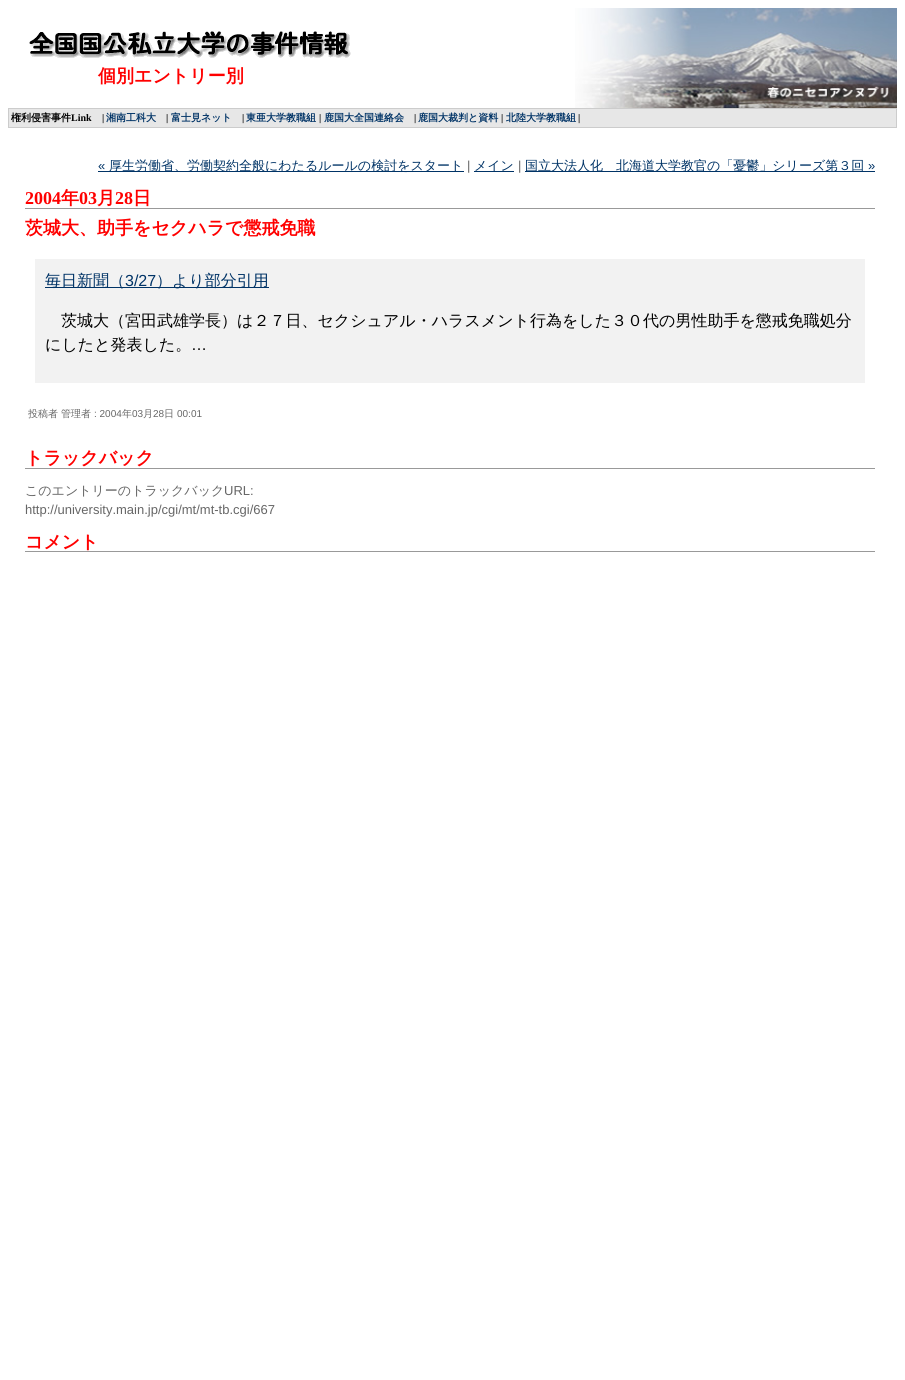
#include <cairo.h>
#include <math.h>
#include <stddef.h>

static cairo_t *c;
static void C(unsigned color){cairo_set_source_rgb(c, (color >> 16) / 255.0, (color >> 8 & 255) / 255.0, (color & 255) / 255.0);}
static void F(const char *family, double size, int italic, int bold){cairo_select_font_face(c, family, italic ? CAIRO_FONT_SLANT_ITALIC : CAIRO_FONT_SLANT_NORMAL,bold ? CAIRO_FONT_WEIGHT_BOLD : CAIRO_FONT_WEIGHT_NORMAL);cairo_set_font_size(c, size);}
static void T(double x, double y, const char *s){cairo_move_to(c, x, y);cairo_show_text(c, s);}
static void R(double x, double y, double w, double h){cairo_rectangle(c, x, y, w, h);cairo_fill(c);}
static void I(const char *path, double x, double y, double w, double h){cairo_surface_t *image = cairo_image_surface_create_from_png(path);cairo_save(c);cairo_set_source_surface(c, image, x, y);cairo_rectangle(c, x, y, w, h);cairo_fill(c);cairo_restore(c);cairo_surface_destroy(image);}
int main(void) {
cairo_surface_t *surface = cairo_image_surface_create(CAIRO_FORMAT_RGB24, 905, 1380);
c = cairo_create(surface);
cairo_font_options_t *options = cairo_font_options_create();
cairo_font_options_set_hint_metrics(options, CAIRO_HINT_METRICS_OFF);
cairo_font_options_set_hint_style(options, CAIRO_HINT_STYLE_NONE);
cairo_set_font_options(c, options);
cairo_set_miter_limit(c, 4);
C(0xffffff);
cairo_paint(c);
I("1.png",29,31,322,27);
F("WenQuanYi Zen Hei",18,0,1);
C(0xff0000);
T(98,82,"個別エントリー別");
I("2.png",575,8,322,100);
C(0xcccccc);
R(8,108,889,20);
C(0xe7e7e7);
R(9,109,887,18);
F("WenQuanYi Zen Hei",10,0,1);
C(0x000000);
T(11,121,"権利侵害事件");
F("Liberation Serif",10,0,1);
T(71,121,"Link");
T(102,121,"|");
F("WenQuanYi Zen Hei",10,0,1);
C(0x003366);
T(106,121,"湘南工科大");
F("Liberation Serif",10,0,1);
C(0x000000);
T(166,121,"|");
F("WenQuanYi Zen Hei",10,0,1);
C(0x003366);
T(171,121,"富士見ネット");
F("Liberation Serif",10,0,1);
C(0x000000);
T(242,121,"|");
F("WenQuanYi Zen Hei",10,0,1);
C(0x003366);
T(246,121,"東亜大学教職組");
F("Liberation Serif",10,0,1);
C(0x000000);
T(319,121,"|");
F("WenQuanYi Zen Hei",10,0,1);
C(0x003366);
T(324,121,"鹿国大全国連絡会");
F("Liberation Serif",10,0,1);
C(0x000000);
T(414,121,"|");
F("WenQuanYi Zen Hei",10,0,1);
C(0x003366);
T(418,121,"鹿国大裁判と資料");
F("Liberation Serif",10,0,1);
C(0x000000);
T(501,121,"|");
F("WenQuanYi Zen Hei",10,0,1);
C(0x003366);
T(506,121,"北陸大学教職組");
F("Liberation Serif",10,0,1);
C(0x000000);
T(578,121,"|");
F("Liberation Sans",13,0,0);
C(0x003366);
T(98,170,"«");
R(98,171,366,1);
F("WenQuanYi Zen Hei Medium",13,0,0);
T(109,170,"厚生労働省、労働契約全般にわたるルールの検討をスタート");
F("Liberation Sans",13,0,0);
C(0x666666);
T(467,170,"|");
C(0x003366);
R(474,171,40,1);
F("WenQuanYi Zen Hei Medium",13,0,0);
T(474,170,"メイン");
F("Liberation Sans",13,0,0);
C(0x666666);
T(518,170,"|");
C(0x003366);
R(525,171,350,1);
F("WenQuanYi Zen Hei Medium",13,0,0);
T(525,170,"国立大法人化　北海道大学教官の「憂鬱」シリーズ第３回");
F("Liberation Sans",13,0,0);
T(868,170,"»");
C(0x999999);
R(25,208,850,1);
F("Liberation Serif",18,0,1);
C(0xff0000);
T(25,204,"2004");
F("WenQuanYi Zen Hei",18,0,1);
T(61,204,"年");
F("Liberation Serif",18,0,1);
T(79,204,"03");
F("WenQuanYi Zen Hei",18,0,1);
T(97,204,"月");
F("Liberation Serif",18,0,1);
T(115,204,"28");
F("WenQuanYi Zen Hei",18,0,1);
T(133,204,"日");
T(25,234,"茨城大、助手をセクハラで懲戒免職");
C(0xf2f2f2);
R(35,259,830,124);
C(0x003366);
R(45,287,224,1);
F("WenQuanYi Zen Hei Medium",16,0,0);
T(45,286,"毎日新聞（");
F("Liberation Sans",16,0,0);
T(125,286,"3/27");
F("WenQuanYi Zen Hei Medium",16,0,0);
T(156,286,"）より部分引用");
C(0x000000);
T(61,326,"茨城大（宮田武雄学長）は２７日、セクシュアル・ハラスメント行為をした３０代の男性助手を懲戒免職処分");
T(45,350,"にしたと発表した。");
F("Liberation Sans",16,0,0);
T(191,350,"…");
F("WenQuanYi Zen Hei Medium",10,0,0);
C(0x666666);
T(28,417,"投稿者 管理者");
F("Liberation Sans",10,0,0);
T(94,417,": 2004");
F("WenQuanYi Zen Hei Medium",10,0,0);
T(122,417,"年");
F("Liberation Sans",10,0,0);
T(132,417,"03");
F("WenQuanYi Zen Hei Medium",10,0,0);
T(143,417,"月");
F("Liberation Sans",10,0,0);
T(153,417,"28");
F("WenQuanYi Zen Hei Medium",10,0,0);
T(164,417,"日");
F("Liberation Sans",10,0,0);
T(177,417,"00:01");
C(0x999999);
R(25,468,850,1);
F("WenQuanYi Zen Hei",18,0,1);
C(0xff0000);
T(25,464,"トラックバック");
F("WenQuanYi Zen Hei Medium",13,0,0);
C(0x666666);
T(25,495,"このエントリーのトラックバック");
F("Liberation Sans",13,0,0);
T(224,495,"URL:");
T(25,514,"http://university.main.jp/cgi/mt/mt-tb.cgi/667");
C(0x999999);
R(25,551,850,1);
F("WenQuanYi Zen Hei",18,0,1);
C(0xff0000);
T(25,548,"コメント");
cairo_surface_write_to_png(surface, "o.png");
cairo_font_options_destroy(options);
cairo_destroy(c);
cairo_surface_destroy(surface);
return 0;
}
